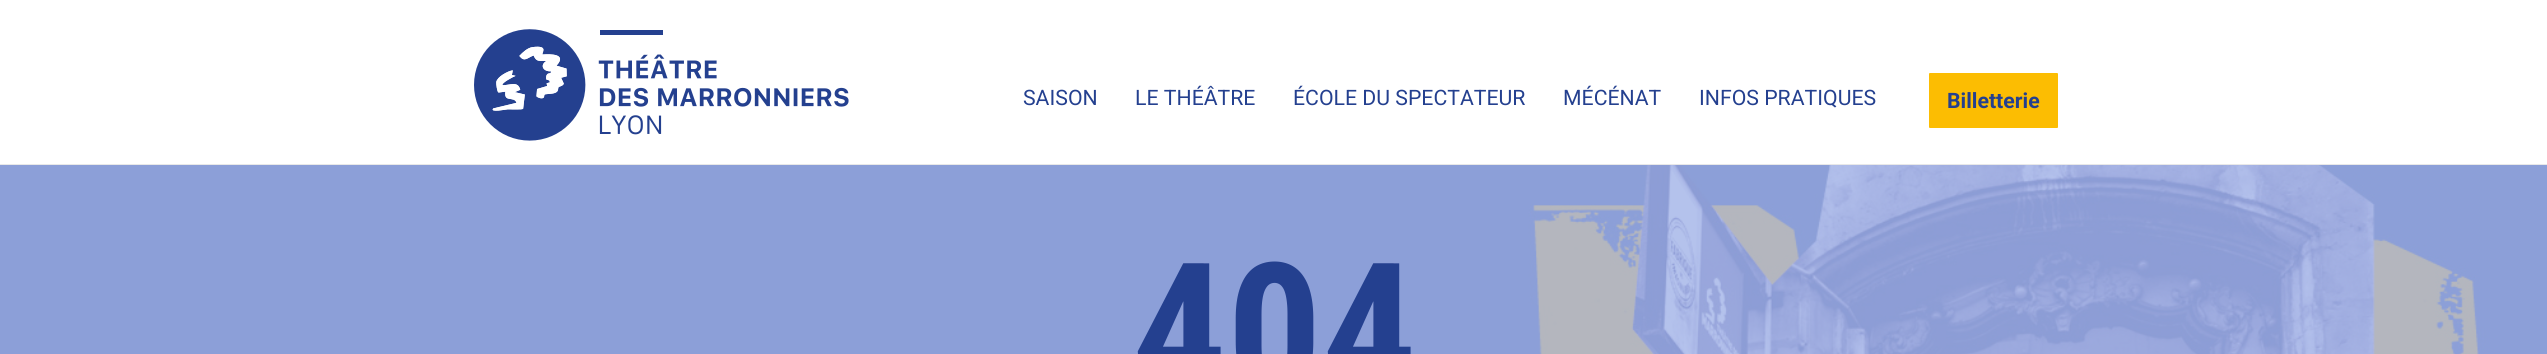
#include <cairo.h>
#include <math.h>
#include <stddef.h>

static cairo_t *c;
static void C(unsigned color){cairo_set_source_rgb(c, (color >> 16) / 255.0, (color >> 8 & 255) / 255.0, (color & 255) / 255.0);}
static void F(const char *family, double size, int italic, int bold){cairo_select_font_face(c, family, italic ? CAIRO_FONT_SLANT_ITALIC : CAIRO_FONT_SLANT_NORMAL,bold ? CAIRO_FONT_WEIGHT_BOLD : CAIRO_FONT_WEIGHT_NORMAL);cairo_set_font_size(c, size);}
static void T(double x, double y, const char *s){cairo_move_to(c, x, y);cairo_show_text(c, s);}
static void R(double x, double y, double w, double h){cairo_rectangle(c, x, y, w, h);cairo_fill(c);}
static void Q(double x, double y, double w, double h, double r){cairo_new_sub_path(c);cairo_arc(c, x + w - r, y + h - r, r, 0, M_PI / 2);cairo_arc(c, x + r, y + h - r, r, M_PI / 2, M_PI);cairo_arc(c, x + r, y + r, r, M_PI, 1.5 * M_PI);cairo_arc(c, x + w - r, y + r, r, 1.5 * M_PI, 2 * M_PI);cairo_close_path(c);}
static void I(const char *path, double x, double y, double w, double h){cairo_surface_t *image = cairo_image_surface_create_from_png(path);cairo_save(c);cairo_set_source_surface(c, image, x, y);cairo_rectangle(c, x, y, w, h);cairo_fill(c);cairo_restore(c);cairo_surface_destroy(image);}
int main(void) {
cairo_surface_t *surface = cairo_image_surface_create(CAIRO_FORMAT_RGB24, 2547, 354);
c = cairo_create(surface);
cairo_font_options_t *options = cairo_font_options_create();
cairo_font_options_set_hint_metrics(options, CAIRO_HINT_METRICS_OFF);
cairo_font_options_set_hint_style(options, CAIRO_HINT_STYLE_NONE);
cairo_set_font_options(c, options);
cairo_set_miter_limit(c, 4);
C(0xffffff);
cairo_paint(c);
C(0xe8e8e8);
R(0,164,2547,1);
I("1.png",474,29,375,112);
F("Roboto",21.25,0,0);
C(0x24408f);
T(1023,105,"SAISON");
T(1135,105,"LE THÉÂTRE");
T(1293,105,"ÉCOLE DU SPECTATEUR");
T(1563,105,"MÉCÉNAT");
T(1699,105,"INFOS PRATIQUES");
C(0xfcbd02);
Q(1927.5,71.5,132,58,2.5);
cairo_fill_preserve(c);
C(0xffffff);
cairo_set_line_width(c,3);
cairo_stroke(c);
F("Roboto",21.25,0,1);
C(0x24408f);
T(1947,108,"Billetterie");
C(0xa3b5e8);
R(0,165,2547,189);
I("2.png",0,165,2547,189);
F("Roboto Condensed",188,0,1);
C(0x24408f);
T(1132,397,"404");
cairo_surface_write_to_png(surface, "o.png");
cairo_font_options_destroy(options);
cairo_destroy(c);
cairo_surface_destroy(surface);
return 0;
}
